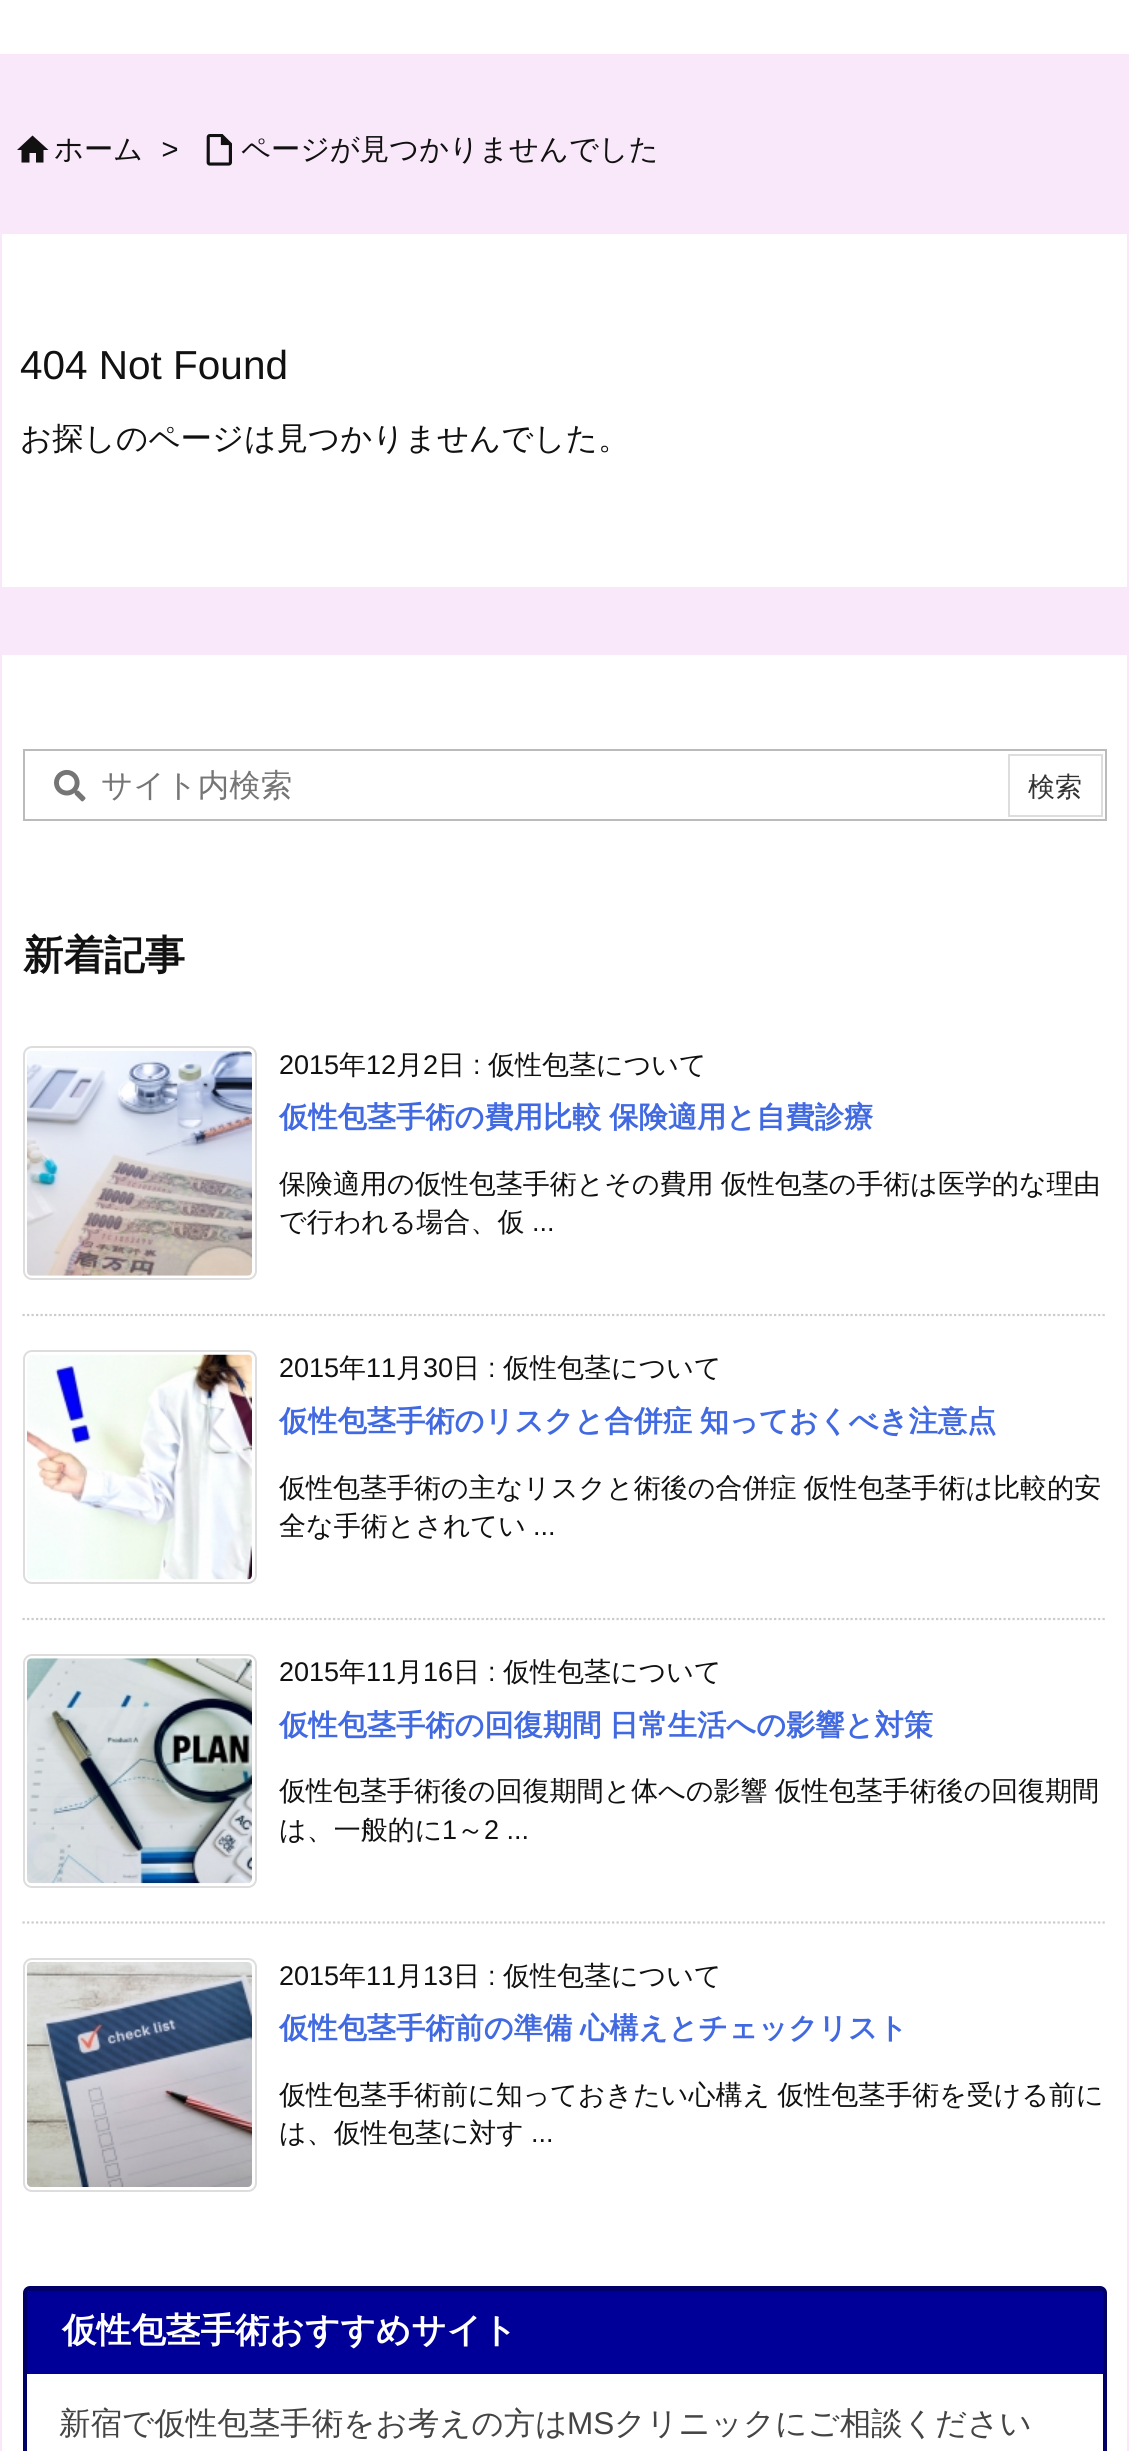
#include <cairo.h>
#include <math.h>
#include <stddef.h>

static cairo_t *c;
static void C(unsigned color){cairo_set_source_rgb(c, (color >> 16) / 255.0, (color >> 8 & 255) / 255.0, (color & 255) / 255.0);}
static void F(const char *family, double size, int italic, int bold){cairo_select_font_face(c, family, italic ? CAIRO_FONT_SLANT_ITALIC : CAIRO_FONT_SLANT_NORMAL,bold ? CAIRO_FONT_WEIGHT_BOLD : CAIRO_FONT_WEIGHT_NORMAL);cairo_set_font_size(c, size);}
static void T(double x, double y, const char *s){cairo_move_to(c, x, y);cairo_show_text(c, s);}
static void L(double x, double y, const char *s, double letter, double word){cairo_move_to(c, x, y);while (*s) {char ch[5] = {0};int n = 0;do ch[n++] = *s++; while ((*s & 0xC0) == 0x80);cairo_show_text(c, ch);cairo_rel_move_to(c, letter + word * (*ch == ' '), 0);}}
static void R(double x, double y, double w, double h){cairo_rectangle(c, x, y, w, h);cairo_fill(c);}
static void Q(double x, double y, double w, double h, double r){cairo_new_sub_path(c);cairo_arc(c, x + w - r, y + h - r, r, 0, M_PI / 2);cairo_arc(c, x + r, y + h - r, r, M_PI / 2, M_PI);cairo_arc(c, x + r, y + r, r, M_PI, 1.5 * M_PI);cairo_arc(c, x + w - r, y + r, r, 1.5 * M_PI, 2 * M_PI);cairo_close_path(c);}
static void I(const char *path, double x, double y, double w, double h){cairo_surface_t *image = cairo_image_surface_create_from_png(path);cairo_save(c);cairo_set_source_surface(c, image, x, y);cairo_rectangle(c, x, y, w, h);cairo_fill(c);cairo_restore(c);cairo_surface_destroy(image);}
int main(void) {
cairo_surface_t *surface = cairo_image_surface_create(CAIRO_FORMAT_RGB24, 1129, 2451);
c = cairo_create(surface);
cairo_font_options_t *options = cairo_font_options_create();
cairo_font_options_set_hint_metrics(options, CAIRO_HINT_METRICS_OFF);
cairo_font_options_set_hint_style(options, CAIRO_HINT_STYLE_NONE);
cairo_set_font_options(c, options);
cairo_set_miter_limit(c, 4);
C(0xf9e8f9);
cairo_paint(c);
C(0xffffff);
R(0,0,1129,54);
C(0x111111);
cairo_new_path(c);
cairo_move_to(c,29.5,162.5);
cairo_line_to(c,21.5,162.5);
cairo_line_to(c,21.5,150);
cairo_line_to(c,17,150);
cairo_line_to(c,32.5,135.5);
cairo_line_to(c,48.5,150);
cairo_line_to(c,43.5,150);
cairo_line_to(c,43.5,162.5);
cairo_line_to(c,36,162.5);
cairo_line_to(c,36,153);
cairo_line_to(c,29.5,153);
cairo_close_path(c);
cairo_fill(c);
F("WenQuanYi Zen Hei Medium",29.25,0,0);
T(54,159,"ホーム");
F("Liberation Sans",29.25,1,0);
T(161,159,">");
I("1.png",206,134,26,32);
F("WenQuanYi Zen Hei Medium",29.25,0,0);
T(241,159,"ページが見つかりませんでした");
C(0xffffff);
R(2,234,1125,353);
F("Liberation Sans",40.5,0,0);
C(0x111111);
T(20,379,"404 Not Found");
F("WenQuanYi Zen Hei Medium",31.5,0,0);
T(20,449,"お探しのページは見つかりませんでした。");
C(0xffffff);
R(2,655,1125,1796);
cairo_rectangle(c,24,750,1082,70);
C(0xbbbbbb);
cairo_stroke(c);
I("2.png",54,769,32,33);
C(0x757575);
T(101,796,"サイト内検索");
cairo_rectangle(c,1009,755,93,61);
C(0xdddddd);
cairo_stroke(c);
F("WenQuanYi Zen Hei Medium",27,0,0);
C(0x333333);
T(1028,796,"検索");
F("WenQuanYi Zen Hei",40.5,0,1);
C(0x111111);
T(23,969,"新着記事");
cairo_new_path(c);
cairo_move_to(c,22.5,1315);
cairo_line_to(c,1107,1315);
C(0xcccccc);
cairo_set_line_width(c,2.2);
cairo_set_dash(c,(double[]){2.25,2.25},2,0);
cairo_stroke(c);
Q(24,1047,232,232,8);
C(0xdddddd);
cairo_set_line_width(c,2);
cairo_set_dash(c,NULL,0,0);
cairo_stroke(c);
I("3.png",27,1050,225,226);
F("Liberation Sans",27,0,0);
C(0x111111);
T(279,1074,"2015");
F("WenQuanYi Zen Hei Medium",27,0,0);
T(339,1074,"年");
F("Liberation Sans",27,0,0);
T(366,1074,"12");
F("WenQuanYi Zen Hei Medium",27,0,0);
T(396,1074,"月");
F("Liberation Sans",27,0,0);
T(423,1074,"2");
F("WenQuanYi Zen Hei Medium",27,0,0);
T(438,1074,"日");
F("Liberation Sans",27,0,0);
T(473,1074,":");
F("WenQuanYi Zen Hei Medium",27,0,0);
T(488,1074,"仮性包茎について");
F("WenQuanYi Zen Hei",29.25,0,1);
C(0x4169e1);
L(279,1127,"仮性包茎手術の費用比較 保険適用と自費診療",0,-1);
F("WenQuanYi Zen Hei Medium",27,0,0);
C(0x111111);
L(279,1193,"保険適用の仮性包茎手術とその費用 仮性包茎の手術は医学的な理由",0,-1);
T(279,1231,"で行われる場合、仮");
F("Liberation Sans",27,0,0);
T(532,1231,"...");
cairo_new_path(c);
cairo_move_to(c,22.5,1619);
cairo_line_to(c,1107,1619);
C(0xcccccc);
cairo_set_line_width(c,2.2);
cairo_set_dash(c,(double[]){2.25,2.25},2,0);
cairo_stroke(c);
Q(24,1351,232,232,8);
C(0xdddddd);
cairo_set_line_width(c,2);
cairo_set_dash(c,NULL,0,0);
cairo_stroke(c);
I("4.png",27,1354,225,226);
C(0x111111);
T(279,1377,"2015");
F("WenQuanYi Zen Hei Medium",27,0,0);
T(339,1377,"年");
F("Liberation Sans",27,0,0);
T(366,1377,"11");
F("WenQuanYi Zen Hei Medium",27,0,0);
T(396,1377,"月");
F("Liberation Sans",27,0,0);
T(423,1377,"30");
F("WenQuanYi Zen Hei Medium",27,0,0);
T(453,1377,"日");
F("Liberation Sans",27,0,0);
T(488,1377,":");
F("WenQuanYi Zen Hei Medium",27,0,0);
T(503,1377,"仮性包茎について");
F("WenQuanYi Zen Hei",29.25,0,1);
C(0x4169e1);
L(279,1431,"仮性包茎手術のリスクと合併症 知っておくべき注意点",0,-1);
F("WenQuanYi Zen Hei Medium",27,0,0);
C(0x111111);
L(279,1497,"仮性包茎手術の主なリスクと術後の合併症 仮性包茎手術は比較的安",0,-1);
T(279,1535,"全な手術とされてい");
F("Liberation Sans",27,0,0);
T(533,1535,"...");
cairo_new_path(c);
cairo_move_to(c,22.5,1922.5);
cairo_line_to(c,1107,1922.5);
C(0xcccccc);
cairo_set_line_width(c,2.2);
cairo_set_dash(c,(double[]){2.25,2.25},2,0);
cairo_stroke(c);
Q(24,1655,232,232,8);
C(0xdddddd);
cairo_set_line_width(c,2);
cairo_set_dash(c,NULL,0,0);
cairo_stroke(c);
I("5.png",27,1658,225,226);
C(0x111111);
T(279,1681,"2015");
F("WenQuanYi Zen Hei Medium",27,0,0);
T(339,1681,"年");
F("Liberation Sans",27,0,0);
T(366,1681,"11");
F("WenQuanYi Zen Hei Medium",27,0,0);
T(396,1681,"月");
F("Liberation Sans",27,0,0);
T(423,1681,"16");
F("WenQuanYi Zen Hei Medium",27,0,0);
T(453,1681,"日");
F("Liberation Sans",27,0,0);
T(488,1681,":");
F("WenQuanYi Zen Hei Medium",27,0,0);
T(503,1681,"仮性包茎について");
F("WenQuanYi Zen Hei",29.25,0,1);
C(0x4169e1);
L(279,1735,"仮性包茎手術の回復期間 日常生活への影響と対策",0,-1);
F("WenQuanYi Zen Hei Medium",27,0,0);
C(0x111111);
L(279,1800,"仮性包茎手術後の回復期間と体への影響 仮性包茎手術後の回復期間",0,-1);
T(279,1839,"は、一般的に");
F("Liberation Sans",27,0,0);
T(442,1839,"1");
F("WenQuanYi Zen Hei Medium",27,0,0);
T(457,1839,"～");
F("Liberation Sans",27,0,0);
T(484,1839,"2 ...");
Q(24,1959,232,232,8);
C(0xdddddd);
cairo_stroke(c);
I("6.png",27,1962,225,225);
C(0x111111);
T(279,1985,"2015");
F("WenQuanYi Zen Hei Medium",27,0,0);
T(339,1985,"年");
F("Liberation Sans",27,0,0);
T(366,1985,"11");
F("WenQuanYi Zen Hei Medium",27,0,0);
T(396,1985,"月");
F("Liberation Sans",27,0,0);
T(423,1985,"13");
F("WenQuanYi Zen Hei Medium",27,0,0);
T(453,1985,"日");
F("Liberation Sans",27,0,0);
T(488,1985,":");
F("WenQuanYi Zen Hei Medium",27,0,0);
T(503,1985,"仮性包茎について");
F("WenQuanYi Zen Hei",29.25,0,1);
C(0x4169e1);
L(279,2038,"仮性包茎手術前の準備 心構えとチェックリスト",0,-1);
F("WenQuanYi Zen Hei Medium",27,0,0);
C(0x111111);
L(279,2104,"仮性包茎手術前に知っておきたい心構え 仮性包茎手術を受ける前に",0,-1);
T(279,2142,"は、仮性包茎に対す");
F("Liberation Sans",27,0,0);
T(531,2142,"...");
Q(25.5,2288.5,1079,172,4.5);
C(0x000066);
cairo_set_line_width(c,5);
cairo_stroke(c);
C(0x000099);
cairo_new_path(c);
cairo_move_to(c,29,2291);
cairo_line_to(c,1101,2291);
cairo_curve_to(c,1102,2291,1103,2292,1103,2293);
cairo_line_to(c,1103,2374);
cairo_line_to(c,27,2374);
cairo_line_to(c,27,2293);
cairo_curve_to(c,27,2292,28,2291,29,2291);
cairo_close_path(c);
cairo_fill(c);
F("WenQuanYi Zen Hei",34.6,0,1);
C(0xffffff);
T(62,2342,"仮性包茎手術おすすめサイト");
R(27,2374,1076,77);
F("WenQuanYi Zen Hei Medium",31.5,0,0);
C(0x444444);
T(59,2434,"新宿で仮性包茎手術をお考えの方は");
F("Liberation Sans",31.5,0,0);
T(567,2434,"MS");
F("WenQuanYi Zen Hei Medium",31.5,0,0);
T(614,2434,"クリニックにご相談ください");
cairo_surface_write_to_png(surface, "o.png");
cairo_font_options_destroy(options);
cairo_destroy(c);
cairo_surface_destroy(surface);
return 0;
}
